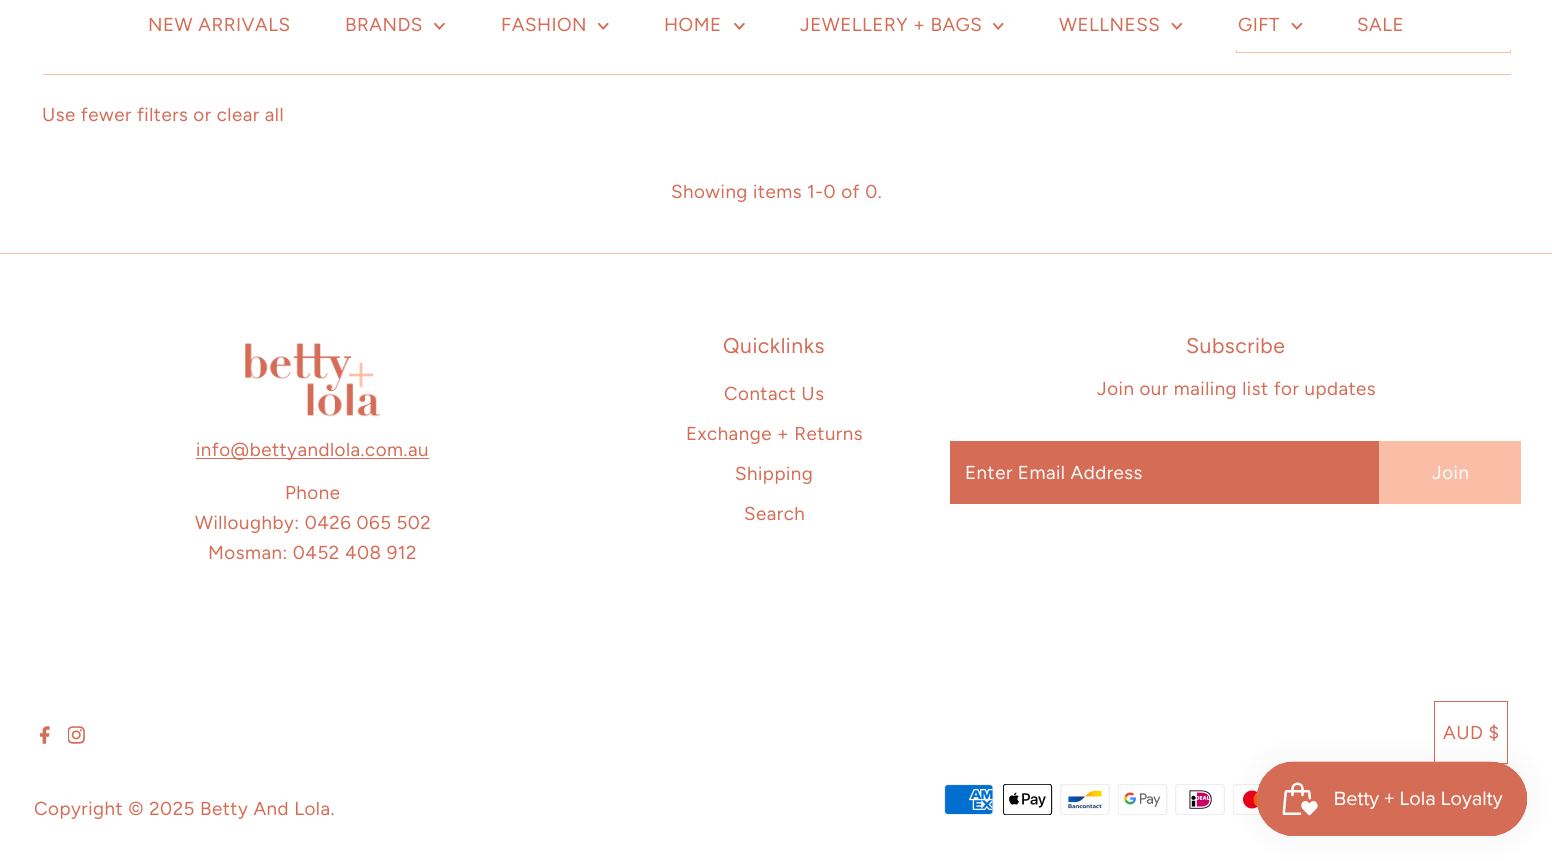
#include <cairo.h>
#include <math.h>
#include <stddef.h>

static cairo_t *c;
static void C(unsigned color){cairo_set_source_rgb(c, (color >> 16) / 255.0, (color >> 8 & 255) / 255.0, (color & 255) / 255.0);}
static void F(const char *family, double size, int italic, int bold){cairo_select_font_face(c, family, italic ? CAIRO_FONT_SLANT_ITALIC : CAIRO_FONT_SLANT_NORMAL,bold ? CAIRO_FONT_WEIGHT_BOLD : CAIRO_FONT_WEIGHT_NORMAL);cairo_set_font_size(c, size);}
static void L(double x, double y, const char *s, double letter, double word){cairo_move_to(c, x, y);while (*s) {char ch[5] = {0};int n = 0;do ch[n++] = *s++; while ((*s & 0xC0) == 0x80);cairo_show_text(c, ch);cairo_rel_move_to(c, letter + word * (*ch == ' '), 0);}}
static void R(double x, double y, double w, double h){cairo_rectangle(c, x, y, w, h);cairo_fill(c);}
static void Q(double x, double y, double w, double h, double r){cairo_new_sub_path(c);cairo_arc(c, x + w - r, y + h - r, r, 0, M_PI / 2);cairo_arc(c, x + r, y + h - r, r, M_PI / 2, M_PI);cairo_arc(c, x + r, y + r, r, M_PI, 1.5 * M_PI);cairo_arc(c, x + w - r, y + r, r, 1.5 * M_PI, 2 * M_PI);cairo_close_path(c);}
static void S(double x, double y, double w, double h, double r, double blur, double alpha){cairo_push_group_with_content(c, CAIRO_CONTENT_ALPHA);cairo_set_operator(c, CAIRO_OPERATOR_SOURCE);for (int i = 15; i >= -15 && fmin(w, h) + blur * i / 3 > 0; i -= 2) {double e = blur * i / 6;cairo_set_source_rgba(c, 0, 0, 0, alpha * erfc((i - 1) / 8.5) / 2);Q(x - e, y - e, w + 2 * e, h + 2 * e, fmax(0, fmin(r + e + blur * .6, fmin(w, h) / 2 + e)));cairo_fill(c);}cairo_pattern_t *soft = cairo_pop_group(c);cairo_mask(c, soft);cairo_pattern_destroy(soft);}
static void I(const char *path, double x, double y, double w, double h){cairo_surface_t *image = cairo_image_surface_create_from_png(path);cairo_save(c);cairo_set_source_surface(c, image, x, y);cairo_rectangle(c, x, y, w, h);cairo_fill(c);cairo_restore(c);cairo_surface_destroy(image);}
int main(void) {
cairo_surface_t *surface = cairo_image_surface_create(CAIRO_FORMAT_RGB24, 1552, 861);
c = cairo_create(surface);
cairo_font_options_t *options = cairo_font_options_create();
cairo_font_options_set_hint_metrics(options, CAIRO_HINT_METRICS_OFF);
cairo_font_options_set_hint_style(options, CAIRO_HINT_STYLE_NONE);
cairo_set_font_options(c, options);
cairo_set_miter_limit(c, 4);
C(0xffffff);
cairo_paint(c);
cairo_rectangle(c,1236.5,-.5,274,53);
C(0xfabea6);
cairo_set_line_width(c,1);
cairo_stroke(c);
C(0xffffff);
R(1236,0,275,50);
F("Figtree",18.75,0,0);
C(0xd56c56);
L(148,31,"NEW ARRIVALS",.5,0);
L(345,31,"BRANDS",.5,0);
I("1.png",434,23,11,7);
L(501,31,"FASHION",.5,0);
I("2.png",598,23,11,7);
L(664,31,"HOME",.5,0);
I("1.png",734,23,11,7);
L(800,31,"JEWELLERY + BAGS",.5,0);
I("2.png",993,23,11,7);
L(1059,31,"WELLNESS",.5,0);
I("3.png",1171,23,12,7);
L(1238,31,"GIFT",.5,0);
I("3.png",1291,23,12,7);
L(1357,31,"SALE",.5,0);
C(0xfabea6);
R(43,74,1468,1);
C(0xd56c56);
L(42,121,"Use fewer filters or clear all",.5,0);
L(671,198,"Showing items 1-0 of 0.",.5,0);
C(0xfabea6);
R(0,253,1552,1);
F("Figtree",21.25,0,0);
C(0xd56c56);
L(723,353,"Quicklinks",.5,0);
F("Figtree",18.75,0,0);
L(724,400,"Contact Us",.5,0);
L(686,440,"Exchange + Returns",.5,0);
L(735,480,"Shipping",.5,0);
L(744,520,"Search",.5,0);
F("Figtree",21.25,0,0);
L(1186,353,"Subscribe",.5,0);
F("Figtree",18.75,0,0);
L(1097,395,"Join our mailing list for updates",.5,0);
R(950,441,429,63);
C(0xffffff);
L(965,479,"Enter Email Address",.5,0);
C(0xfabea6);
R(1379,441,142,63);
C(0xffffff);
L(1432,479,"Join",.5,0);
I("4.png",245,343,135,74);
C(0xd56c56);
R(196,458,233,1);
L(196,456,"info@bettyandlola.com.au",.5,0);
L(285,499,"Phone",.5,0);
L(195,529,"Willoughby: 0426 065 502",.5,0);
L(208,559,"Mosman: 0452 408 912",.5,0);
cairo_rectangle(c,1434.5,701.5,73,62);
cairo_stroke(c);
L(1443,739,"AUD $",.5,0);
I("5.png",944,784,50,31);
I("6.png",1003,784,50,31);
I("7.png",1060,784,50,31);
I("8.png",1118,784,50,31);
I("9.png",1175,784,50,31);
I("10.png",1233,784,28,31);
I("11.png",40,726,10,18);
I("12.png",68,726,17,18);
L(34,815,"Copyright © 2025 Betty And Lola.",.5,0);
C(0x000000);
S(1256,761,272,75,37.5,15.5,.05);
I("13.png",1256,761,272,75);
cairo_surface_write_to_png(surface, "o.png");
cairo_font_options_destroy(options);
cairo_destroy(c);
cairo_surface_destroy(surface);
return 0;
}
